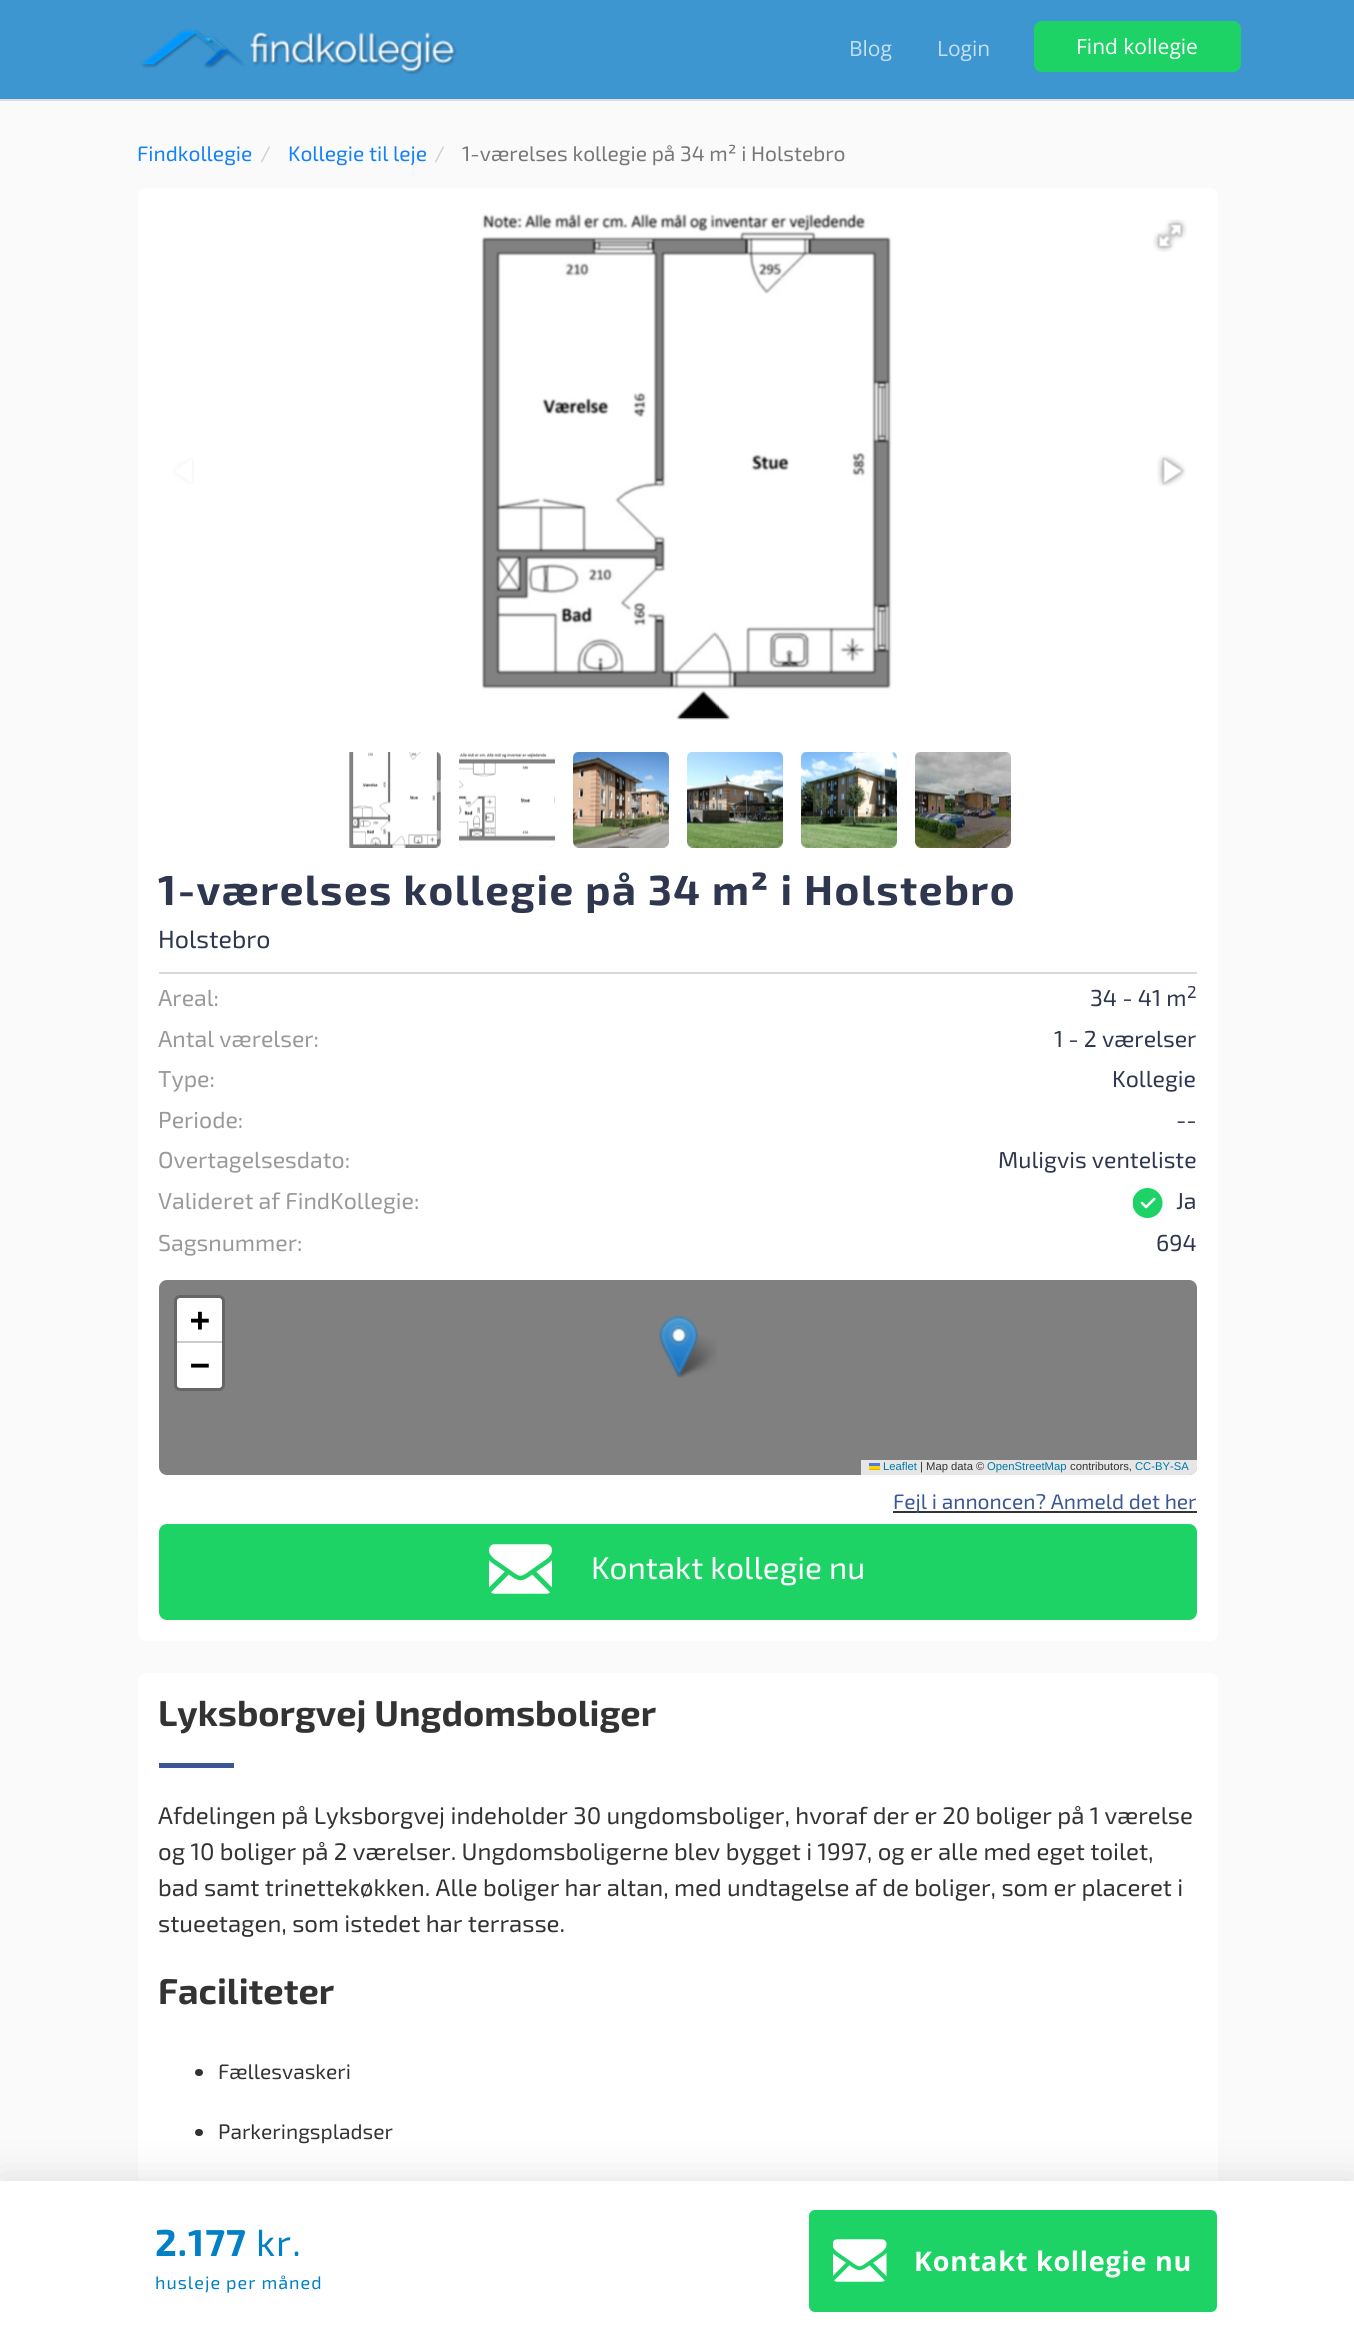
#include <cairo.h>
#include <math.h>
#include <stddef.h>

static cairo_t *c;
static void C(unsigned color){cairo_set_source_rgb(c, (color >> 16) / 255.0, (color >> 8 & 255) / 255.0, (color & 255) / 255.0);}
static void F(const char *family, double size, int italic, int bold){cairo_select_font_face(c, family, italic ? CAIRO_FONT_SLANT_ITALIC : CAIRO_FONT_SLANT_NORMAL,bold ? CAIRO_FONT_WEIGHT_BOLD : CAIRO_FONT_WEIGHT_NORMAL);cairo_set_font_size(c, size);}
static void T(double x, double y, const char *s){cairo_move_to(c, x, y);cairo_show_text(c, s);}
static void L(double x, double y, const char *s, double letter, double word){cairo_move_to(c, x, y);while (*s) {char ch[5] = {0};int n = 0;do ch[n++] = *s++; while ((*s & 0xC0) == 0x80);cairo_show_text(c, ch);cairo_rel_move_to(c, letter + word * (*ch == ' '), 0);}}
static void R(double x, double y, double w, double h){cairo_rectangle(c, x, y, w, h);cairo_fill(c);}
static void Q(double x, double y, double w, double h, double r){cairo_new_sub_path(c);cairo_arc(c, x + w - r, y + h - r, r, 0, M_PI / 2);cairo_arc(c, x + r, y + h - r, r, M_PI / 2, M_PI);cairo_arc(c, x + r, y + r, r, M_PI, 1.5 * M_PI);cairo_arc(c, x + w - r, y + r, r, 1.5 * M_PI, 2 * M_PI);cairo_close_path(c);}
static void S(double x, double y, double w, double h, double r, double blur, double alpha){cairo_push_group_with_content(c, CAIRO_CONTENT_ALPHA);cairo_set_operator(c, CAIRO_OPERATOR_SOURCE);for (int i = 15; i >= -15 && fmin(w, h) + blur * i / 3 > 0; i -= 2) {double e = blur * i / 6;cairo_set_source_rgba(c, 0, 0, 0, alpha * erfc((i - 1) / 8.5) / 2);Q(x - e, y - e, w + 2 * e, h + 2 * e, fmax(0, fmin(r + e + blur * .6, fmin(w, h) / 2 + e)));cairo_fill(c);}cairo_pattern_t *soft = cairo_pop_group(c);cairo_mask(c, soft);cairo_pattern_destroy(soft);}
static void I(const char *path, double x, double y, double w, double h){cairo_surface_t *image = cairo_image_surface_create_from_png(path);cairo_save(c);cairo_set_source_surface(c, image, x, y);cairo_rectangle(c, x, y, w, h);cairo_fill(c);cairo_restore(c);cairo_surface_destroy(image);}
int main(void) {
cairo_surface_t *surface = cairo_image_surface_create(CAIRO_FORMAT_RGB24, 1354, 2339);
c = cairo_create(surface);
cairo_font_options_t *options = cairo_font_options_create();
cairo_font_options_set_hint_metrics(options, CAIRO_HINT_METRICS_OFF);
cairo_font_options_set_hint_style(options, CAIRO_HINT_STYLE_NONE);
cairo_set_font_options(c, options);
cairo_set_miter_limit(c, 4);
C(0xfafafa);
cairo_paint(c);
C(0x3e96d1);
R(0,0,1354,99);
C(0xdedede);
R(0,99,1354,2);
I("1.png",141,29,316,46);
F("Open Sans",21,0,0);
C(0xc5e0f1);
T(849,56,"Blog");
T(937,56,"Login");
C(0x1ed366);
Q(1034,21,207,51,8);
cairo_fill(c);
C(0xffffff);
T(1076,54,"Find kollegie");
F("Exo 2",21,0,0);
C(0x1481f8);
T(137,161,"Findkollegie");
C(0xcccccc);
T(260,161,"/");
C(0x1481f8);
T(288,161,"Kollegie til leje");
C(0xcccccc);
T(434,161,"/");
C(0x777777);
T(462,161,"1-værelses kollegie på 34 m² i Holstebro");
C(0xffffff);
Q(138,188,1080,1453,8);
cairo_fill(c);
I("2.png",481,213,411,507);
I("3.png",1153,219,34,33);
I("4.png",173,458,21,26);
I("5.png",1157,455,29,32);
C(0xe5e5e5);
Q(345,752,96,96,6);
cairo_fill(c);
I("6.png",345,752,96,96);
Q(459,752,96,96,6);
cairo_fill(c);
I("7.png",459,752,96,96);
Q(573,752,96,96,6);
cairo_fill(c);
I("8.png",573,752,96,96);
Q(687,752,96,96,6);
cairo_fill(c);
I("9.png",687,752,96,96);
Q(801,752,96,96,6);
cairo_fill(c);
I("10.png",801,752,96,96);
Q(915,752,96,96,6);
cairo_fill(c);
I("11.png",915,752,96,96);
C(0xd9d9d9);
R(159,972,1038,2);
F("Exo 2",42,0,1);
C(0x2f374f);
L(158,905,"1-værelses kollegie på 34 m² i Holstebro",1.5,0);
F("Exo 2",25,0,0);
T(158,948,"Holstebro");
F("Exo 2",23.1,0,0);
C(0x999999);
T(158,1006,"Areal:");
C(0x2f374f);
T(1090,1006,"34 - 41 m");
F("Exo 2",17,0,0);
T(1187,998,"2");
F("Exo 2",23.1,0,0);
C(0x999999);
T(158,1047,"Antal værelser:");
C(0x2f374f);
T(1054,1047,"1 - 2 værelser");
C(0x999999);
T(158,1087,"Type:");
C(0x2f374f);
T(1112,1087,"Kollegie");
C(0x999999);
T(158,1128,"Periode:");
C(0x2f374f);
T(1176,1128,"--");
C(0x999999);
T(158,1168,"Overtagelsesdato:");
C(0x2f374f);
T(998,1168,"Muligvis venteliste");
C(0x999999);
T(158,1209,"Valideret af FindKollegie:");
I("12.png",1133,1188,30,30);
C(0x2f374f);
T(1176,1209,"Ja");
C(0x999999);
T(158,1251,"Sagsnummer:");
C(0x2f374f);
T(1156,1251,"694");
C(0x808080);
Q(159,1280,1038,195,8);
cairo_fill(c);
Q(175.5,1296.5,48,93,4.5);
C(0x666666);
cairo_set_line_width(c,3);
cairo_stroke(c);
C(0xffffff);
cairo_new_path(c);
cairo_move_to(c,180,1298);
cairo_line_to(c,219,1298);
cairo_curve_to(c,220.5,1298,222,1299.5,222,1301);
cairo_line_to(c,222,1343);
cairo_line_to(c,177,1343);
cairo_line_to(c,177,1301);
cairo_curve_to(c,177,1299.5,178.5,1298,180,1298);
cairo_close_path(c);
cairo_fill(c);
C(0xcccccc);
R(177,1341,45,2);
F("DejaVu Sans Mono",33,0,1);
C(0x000000);
T(190,1331,"+");
C(0xffffff);
cairo_new_path(c);
cairo_move_to(c,177,1343);
cairo_line_to(c,222,1343);
cairo_line_to(c,222,1385);
cairo_curve_to(c,222,1386.5,220.5,1388,219,1388);
cairo_line_to(c,180,1388);
cairo_curve_to(c,178.5,1388,177,1386.5,177,1385);
cairo_close_path(c);
cairo_fill(c);
C(0x000000);
T(190,1376,"−");
cairo_set_source_rgba(c,1,1,1,0.8);
cairo_new_path(c);
cairo_move_to(c,861,1460);
cairo_line_to(c,1197,1460);
cairo_line_to(c,1197,1467);
cairo_curve_to(c,1197,1471.5,1193.5,1475,1189,1475);
cairo_line_to(c,861,1475);
cairo_close_path(c);
cairo_fill(c);
F("Liberation Sans",11.25,0,0);
C(0x0078a8);
T(883,1470,"Leaflet");
C(0x4c7be1);
R(869,1463,11,3);
C(0xffd500);
R(869,1466,11,3);
C(0xe0bc00);
R(869,1469,11,1);
C(0x333333);
T(920,1470,"| Map data ©");
C(0x0078a8);
T(987,1470,"OpenStreetMap");
C(0x333333);
T(1070,1470,"contributors,");
C(0x0078a8);
T(1135,1470,"CC-BY-SA");
I("14.png",673,1335,44,43);
I("13.png",659,1315,39,63);
C(0x333333);
R(893,1511,304,2);
F("Exo 2",21,0,0);
C(0x3a5795);
T(893,1509,"Fejl i annoncen? Anmeld det her");
C(0x1ed366);
Q(159,1524,1038,96,8);
cairo_fill(c);
I("15.png",489,1544,63,50);
F("Exo 2",31.5,0,0);
C(0xffffff);
T(591,1579,"Kontakt kollegie nu");
Q(138,1673,1080,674,8);
cairo_fill(c);
F("Exo 2",36,0,1);
C(0x333333);
T(158,1726,"Lyksborgvej Ungdomsboliger");
C(0x3a5795);
R(159,1763,75,5);
F("Exo 2",24,0,0);
C(0x333333);
T(158,1824,"Afdelingen på Lyksborgvej indeholder 30 ungdomsboliger, hvoraf der er 20 boliger på 1 værelse");
T(158,1860,"og 10 boliger på 2 værelser. Ungdomsboligerne blev bygget i 1997, og er alle med eget toilet,");
T(158,1896,"bad samt trinettekøkken. Alle boliger har altan, med undtagelse af de boliger, som er placeret i");
T(158,1932,"stueetagen, som istedet har terrasse.");
F("Exo 2",36,0,1);
T(158,2004,"Faciliteter");
Q(195,2069,8,7,3.5);
cairo_fill(c);
F("Exo 2",21,0,0);
T(218,2079,"Fællesvaskeri");
Q(195,2129,8,7,3.5);
cairo_fill(c);
T(218,2139,"Parkeringspladser");
C(0x000000);
S(0,2181,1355,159,0,22,.12);
C(0xffffff);
R(0,2181,1354,158);
F("Exo 2",37.5,0,1);
C(0x0180c6);
L(155,2256,"2.177",1,0);
F("Exo 2",37.5,0,0);
L(256,2256,"kr.",1,0);
F("Exo 2",18,0,0);
L(155,2289,"husleje per måned",1,0);
C(0x1ed366);
Q(809,2210,408,102,6);
cairo_fill(c);
I("16.png",833,2239,54,43);
F("Open Sans",27,0,1);
C(0xffffff);
L(914,2271,"Kontakt kollegie nu",.75,0);
cairo_surface_write_to_png(surface, "o.png");
cairo_font_options_destroy(options);
cairo_destroy(c);
cairo_surface_destroy(surface);
return 0;
}
